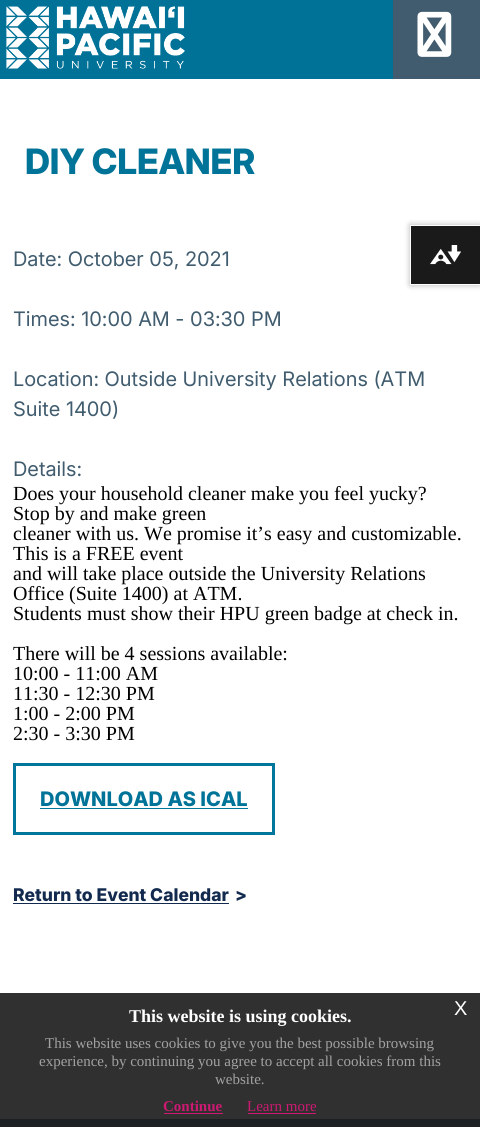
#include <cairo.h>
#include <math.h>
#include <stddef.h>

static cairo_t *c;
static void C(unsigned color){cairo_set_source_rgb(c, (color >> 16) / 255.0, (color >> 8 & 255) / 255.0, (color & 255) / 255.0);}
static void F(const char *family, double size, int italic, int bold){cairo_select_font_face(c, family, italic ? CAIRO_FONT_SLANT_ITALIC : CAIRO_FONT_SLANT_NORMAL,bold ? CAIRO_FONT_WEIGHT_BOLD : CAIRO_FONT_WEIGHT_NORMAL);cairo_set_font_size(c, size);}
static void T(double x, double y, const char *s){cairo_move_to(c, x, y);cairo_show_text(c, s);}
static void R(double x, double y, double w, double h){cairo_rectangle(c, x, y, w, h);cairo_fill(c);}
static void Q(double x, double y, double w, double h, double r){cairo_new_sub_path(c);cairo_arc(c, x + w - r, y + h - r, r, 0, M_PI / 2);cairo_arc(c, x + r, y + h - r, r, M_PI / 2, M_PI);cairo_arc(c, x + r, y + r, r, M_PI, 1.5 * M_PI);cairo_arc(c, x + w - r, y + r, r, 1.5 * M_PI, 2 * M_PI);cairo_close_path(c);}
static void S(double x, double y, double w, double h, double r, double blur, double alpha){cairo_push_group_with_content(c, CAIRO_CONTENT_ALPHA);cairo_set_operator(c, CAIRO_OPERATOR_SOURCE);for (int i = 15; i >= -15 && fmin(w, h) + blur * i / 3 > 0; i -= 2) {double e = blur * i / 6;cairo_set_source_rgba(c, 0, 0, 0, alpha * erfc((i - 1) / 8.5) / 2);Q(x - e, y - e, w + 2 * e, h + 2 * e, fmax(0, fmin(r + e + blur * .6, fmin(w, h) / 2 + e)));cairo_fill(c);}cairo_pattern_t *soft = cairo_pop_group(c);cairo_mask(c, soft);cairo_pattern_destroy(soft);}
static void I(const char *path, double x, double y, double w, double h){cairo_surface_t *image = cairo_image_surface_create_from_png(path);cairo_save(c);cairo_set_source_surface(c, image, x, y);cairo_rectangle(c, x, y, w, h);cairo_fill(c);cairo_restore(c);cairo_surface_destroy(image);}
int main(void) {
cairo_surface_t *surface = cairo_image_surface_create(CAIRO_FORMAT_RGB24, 480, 1127);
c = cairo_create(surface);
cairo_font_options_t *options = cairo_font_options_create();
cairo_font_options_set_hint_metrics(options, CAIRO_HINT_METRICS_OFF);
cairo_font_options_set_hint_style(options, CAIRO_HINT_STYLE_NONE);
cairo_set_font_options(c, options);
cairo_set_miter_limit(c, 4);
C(0xffffff);
cairo_paint(c);
C(0x303030);
R(0,993,480,126);
C(0x007298);
R(0,0,393,79);
I("1.png",6,6,179,63);
C(0x405c6e);
R(393,0,87,79);
I("2.png",417,11,35,46);
F("Inter ExtraBold",35,0,0);
C(0x007398);
T(25,174,"DIY CLEANER");
F("Inter",20,0,0);
C(0x405c6e);
T(13,266,"Date: October 05, 2021");
T(13,326,"Times: 10:00 AM - 03:30 PM");
T(13,386,"Location: Outside University Relations (ATM");
T(13,416,"Suite 1400)");
T(13,476,"Details:");
F("Liberation Serif",20,0,0);
C(0x000000);
T(13,500,"Does your household cleaner make you feel yucky?");
T(13,520,"Stop by and make green");
T(13,540,"cleaner with us. We promise it’s easy and customizable.");
T(13,560,"This is a FREE event");
T(13,580,"and will take place outside the University Relations");
T(13,600,"Office (Suite 1400) at ATM.");
T(13,620,"Students must show their HPU green badge at check in.");
T(13,660,"There will be 4 sessions available:");
T(13,680,"10:00 - 11:00 AM");
T(13,700,"11:30 - 12:30 PM");
T(13,720,"1:00 - 2:00 PM");
T(13,740,"2:30 - 3:30 PM");
cairo_rectangle(c,14.5,764.5,259,69);
C(0x00769b);
cairo_set_line_width(c,3);
cairo_stroke(c);
F("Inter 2 ExtraBold",20,0,0);
C(0x007398);
T(40,806,"DOWNLOAD AS ICAL");
C(0x00769b);
R(40,808,208,1);
F("Inter 2 ExtraBold",17.5,0,0);
C(0x132a4f);
T(13,901,"Return to Event Calendar");
R(13,903,216,1);
T(235,901,">");
C(0x1d2022);
R(0,1119,480,8);
C(0x000000);
S(410,225,70,60,0,3,.3);
C(0x1a1a1a);
R(411,226,69,58);
C(0xffffff);
R(410,225,70,1);
R(410,284,70,1);
R(410,225,1,60);
I("3.png",430,245,31,20);
F("Liberation Serif",18,0,1);
T(129,1022,"This website is using cookies.");
F("Liberation Sans",20,0,0);
T(454,1015,"X");
F("Liberation Serif",15,0,0);
C(0xa2a2a2);
T(45,1048,"This website uses cookies to give you the best possible browsing");
T(39,1066,"experience, by continuing you agree to accept all cookies from this");
T(215,1084,"website.");
F("Liberation Serif",15,0,1);
C(0xcd1972);
T(163,1111,"Continue");
R(164,1113,59,1);
F("Liberation Serif",15,0,0);
T(247,1111,"Learn more");
R(248,1113,68,1);
cairo_surface_write_to_png(surface, "o.png");
cairo_font_options_destroy(options);
cairo_destroy(c);
cairo_surface_destroy(surface);
return 0;
}
